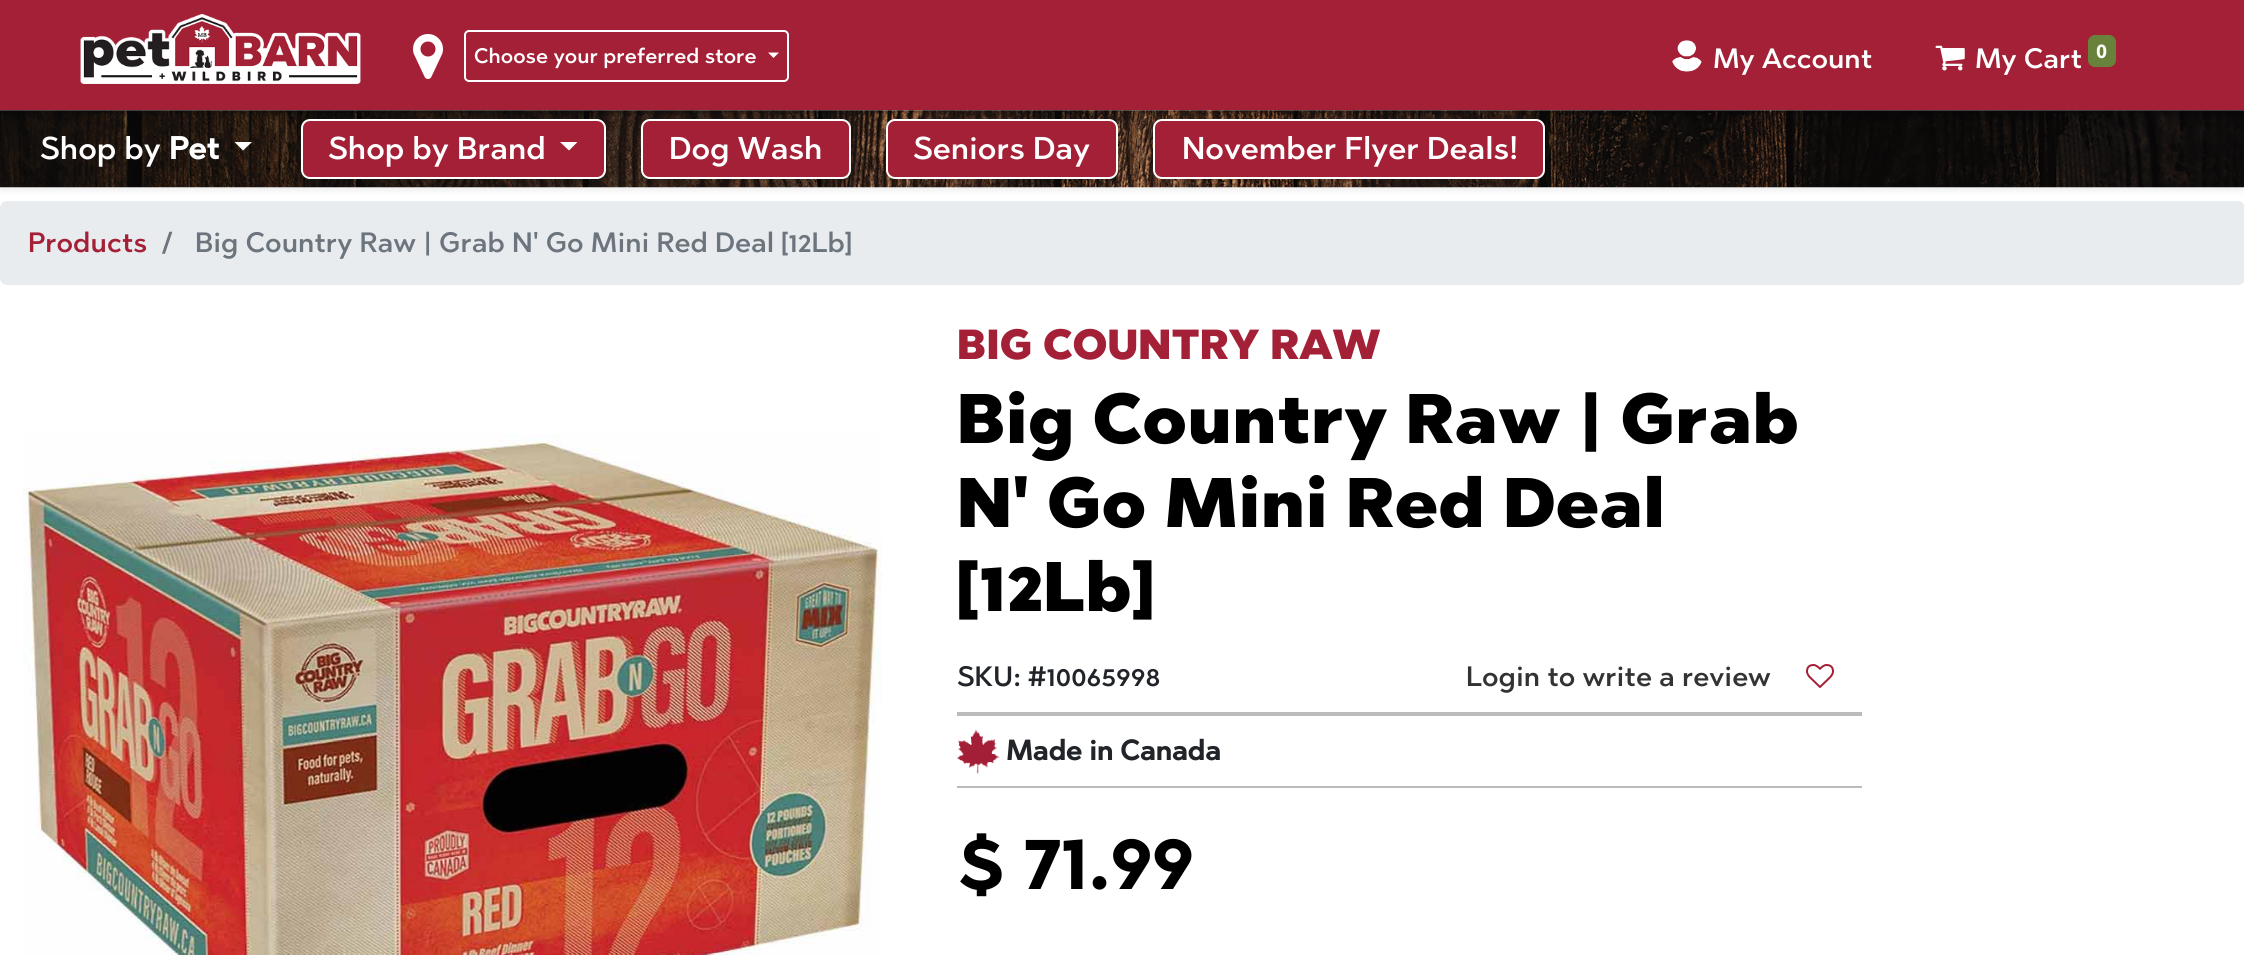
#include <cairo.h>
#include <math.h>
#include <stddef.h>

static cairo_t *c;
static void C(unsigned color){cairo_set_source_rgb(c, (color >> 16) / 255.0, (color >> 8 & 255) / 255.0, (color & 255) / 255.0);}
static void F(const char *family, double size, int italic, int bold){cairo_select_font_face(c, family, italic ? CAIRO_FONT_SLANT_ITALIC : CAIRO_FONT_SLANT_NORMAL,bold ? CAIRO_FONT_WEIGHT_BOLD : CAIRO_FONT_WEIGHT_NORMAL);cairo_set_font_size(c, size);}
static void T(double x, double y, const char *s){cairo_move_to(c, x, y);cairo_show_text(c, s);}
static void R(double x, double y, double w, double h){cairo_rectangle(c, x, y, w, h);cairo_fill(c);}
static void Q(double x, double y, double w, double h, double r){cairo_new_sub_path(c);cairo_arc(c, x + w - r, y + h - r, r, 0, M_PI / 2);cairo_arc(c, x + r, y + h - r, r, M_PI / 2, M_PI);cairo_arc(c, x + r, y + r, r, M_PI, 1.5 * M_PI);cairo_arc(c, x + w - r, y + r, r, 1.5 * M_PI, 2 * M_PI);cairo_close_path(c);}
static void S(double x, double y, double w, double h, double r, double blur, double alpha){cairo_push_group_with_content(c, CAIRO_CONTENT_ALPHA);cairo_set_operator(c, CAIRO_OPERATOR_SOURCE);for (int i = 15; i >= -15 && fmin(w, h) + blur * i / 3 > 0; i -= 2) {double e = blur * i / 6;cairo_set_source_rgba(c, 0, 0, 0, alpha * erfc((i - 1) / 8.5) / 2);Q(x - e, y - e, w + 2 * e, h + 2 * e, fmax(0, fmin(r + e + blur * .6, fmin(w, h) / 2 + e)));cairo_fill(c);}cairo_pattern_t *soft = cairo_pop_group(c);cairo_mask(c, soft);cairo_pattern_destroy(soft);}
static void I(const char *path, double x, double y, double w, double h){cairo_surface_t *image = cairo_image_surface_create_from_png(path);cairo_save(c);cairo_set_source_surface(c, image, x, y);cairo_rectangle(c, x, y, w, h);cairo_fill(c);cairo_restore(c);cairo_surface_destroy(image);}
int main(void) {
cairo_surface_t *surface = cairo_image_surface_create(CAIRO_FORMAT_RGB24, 2244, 955);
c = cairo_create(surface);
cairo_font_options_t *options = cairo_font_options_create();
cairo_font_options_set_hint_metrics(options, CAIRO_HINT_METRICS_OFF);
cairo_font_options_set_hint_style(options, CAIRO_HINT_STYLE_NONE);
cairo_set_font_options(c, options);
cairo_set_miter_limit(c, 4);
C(0xffffff);
cairo_paint(c);
C(0x000000);
S(0,4,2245,110,0,3.5,.07);
C(0xa32036);
R(0,0,2244,110);
I("1.png",80,14,281,70);
I("2.png",413,34,30,45);
Q(465,31,323,50,4);
C(0xffffff);
cairo_stroke(c);
F("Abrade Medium",21,0,0);
T(474,63,"Choose your preferred store");
cairo_new_path(c);
cairo_move_to(c,768,52.5);
cairo_line_to(c,779,52.5);
cairo_line_to(c,773.5,58);
cairo_close_path(c);
cairo_fill(c);
I("3.png",1672,40,30,32);
F("Abrade Medium",28,0,0);
T(1713,68,"My Account");
I("4.png",1935,45,30,26);
T(1975,68,"My Cart");
C(0x68813b);
Q(2088,35,28,32,7);
cairo_fill(c);
F("Source Sans Pro",21,0,1);
C(0xffffff);
T(2096,58,"0");
C(0xe9ecef);
Q(0,201,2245,84,7);
cairo_fill(c);
C(0x000000);
S(0,114,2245,77,0,3.5,.07);
I("5.png",0,110,2244,78);
F("Abrade Medium",31.5,0,0);
C(0xffffff);
T(40,159,"Shop by");
F("Abrade",31.5,0,1);
T(169,159,"Pet");
cairo_new_path(c);
cairo_move_to(c,234.5,142);
cairo_line_to(c,252,142);
cairo_line_to(c,243,150.5);
cairo_close_path(c);
cairo_fill(c);
C(0xa32036);
Q(302,120,303,58,8);
cairo_fill_preserve(c);
C(0xffffff);
cairo_stroke(c);
F("Abrade Medium",31.5,0,0);
T(328,159,"Shop by Brand");
cairo_new_path(c);
cairo_move_to(c,560,142);
cairo_line_to(c,577.5,142);
cairo_line_to(c,569,150.5);
cairo_close_path(c);
cairo_fill(c);
C(0xa32036);
Q(642,120,208,58,8);
cairo_fill_preserve(c);
C(0xffffff);
cairo_stroke(c);
T(669,159,"Dog Wash");
C(0xa32036);
Q(887,120,230,58,8);
cairo_fill_preserve(c);
C(0xffffff);
cairo_stroke(c);
T(913,159,"Seniors Day");
C(0xa32036);
Q(1154,120,390,58,8);
cairo_fill_preserve(c);
C(0xffffff);
cairo_stroke(c);
T(1182,159,"November Flyer Deals!");
F("Abrade Medium",28,0,0);
C(0xa32036);
T(28,252,"Products");
C(0x6c757d);
T(161,252,"/");
T(195,252,"Big Country Raw | Grab N' Go Mini Red Deal [12Lb]");
I("6.png",23,434,859,521);
F("Abrade Black",42,0,0);
C(0xa32036);
T(957,359,"BIG COUNTRY RAW");
F("Abrade Black",70,0,0);
C(0x000000);
T(957,443,"Big Country Raw | Grab");
T(957,527,"N' Go Mini Red Deal");
T(957,611,"[12Lb]");
C(0xbbbbbb);
R(957,712,905,4);
F("Abrade Medium",28,0,0);
C(0x212529);
T(957,686,"SKU: #10065998");
C(0x333333);
T(1466,686,"Login to write a review");
I("7.png",1806,664,28,24);
C(0xbbbbbb);
R(957,786,905,2);
I("8.png",957,729,43,45);
F("Abrade",28,0,1);
C(0x212529);
T(1006,760,"Made in Canada");
F("Abrade",78.5,0,1);
C(0x000000);
T(957,889,"$ 71.99");
cairo_surface_write_to_png(surface, "o.png");
cairo_font_options_destroy(options);
cairo_destroy(c);
cairo_surface_destroy(surface);
return 0;
}
